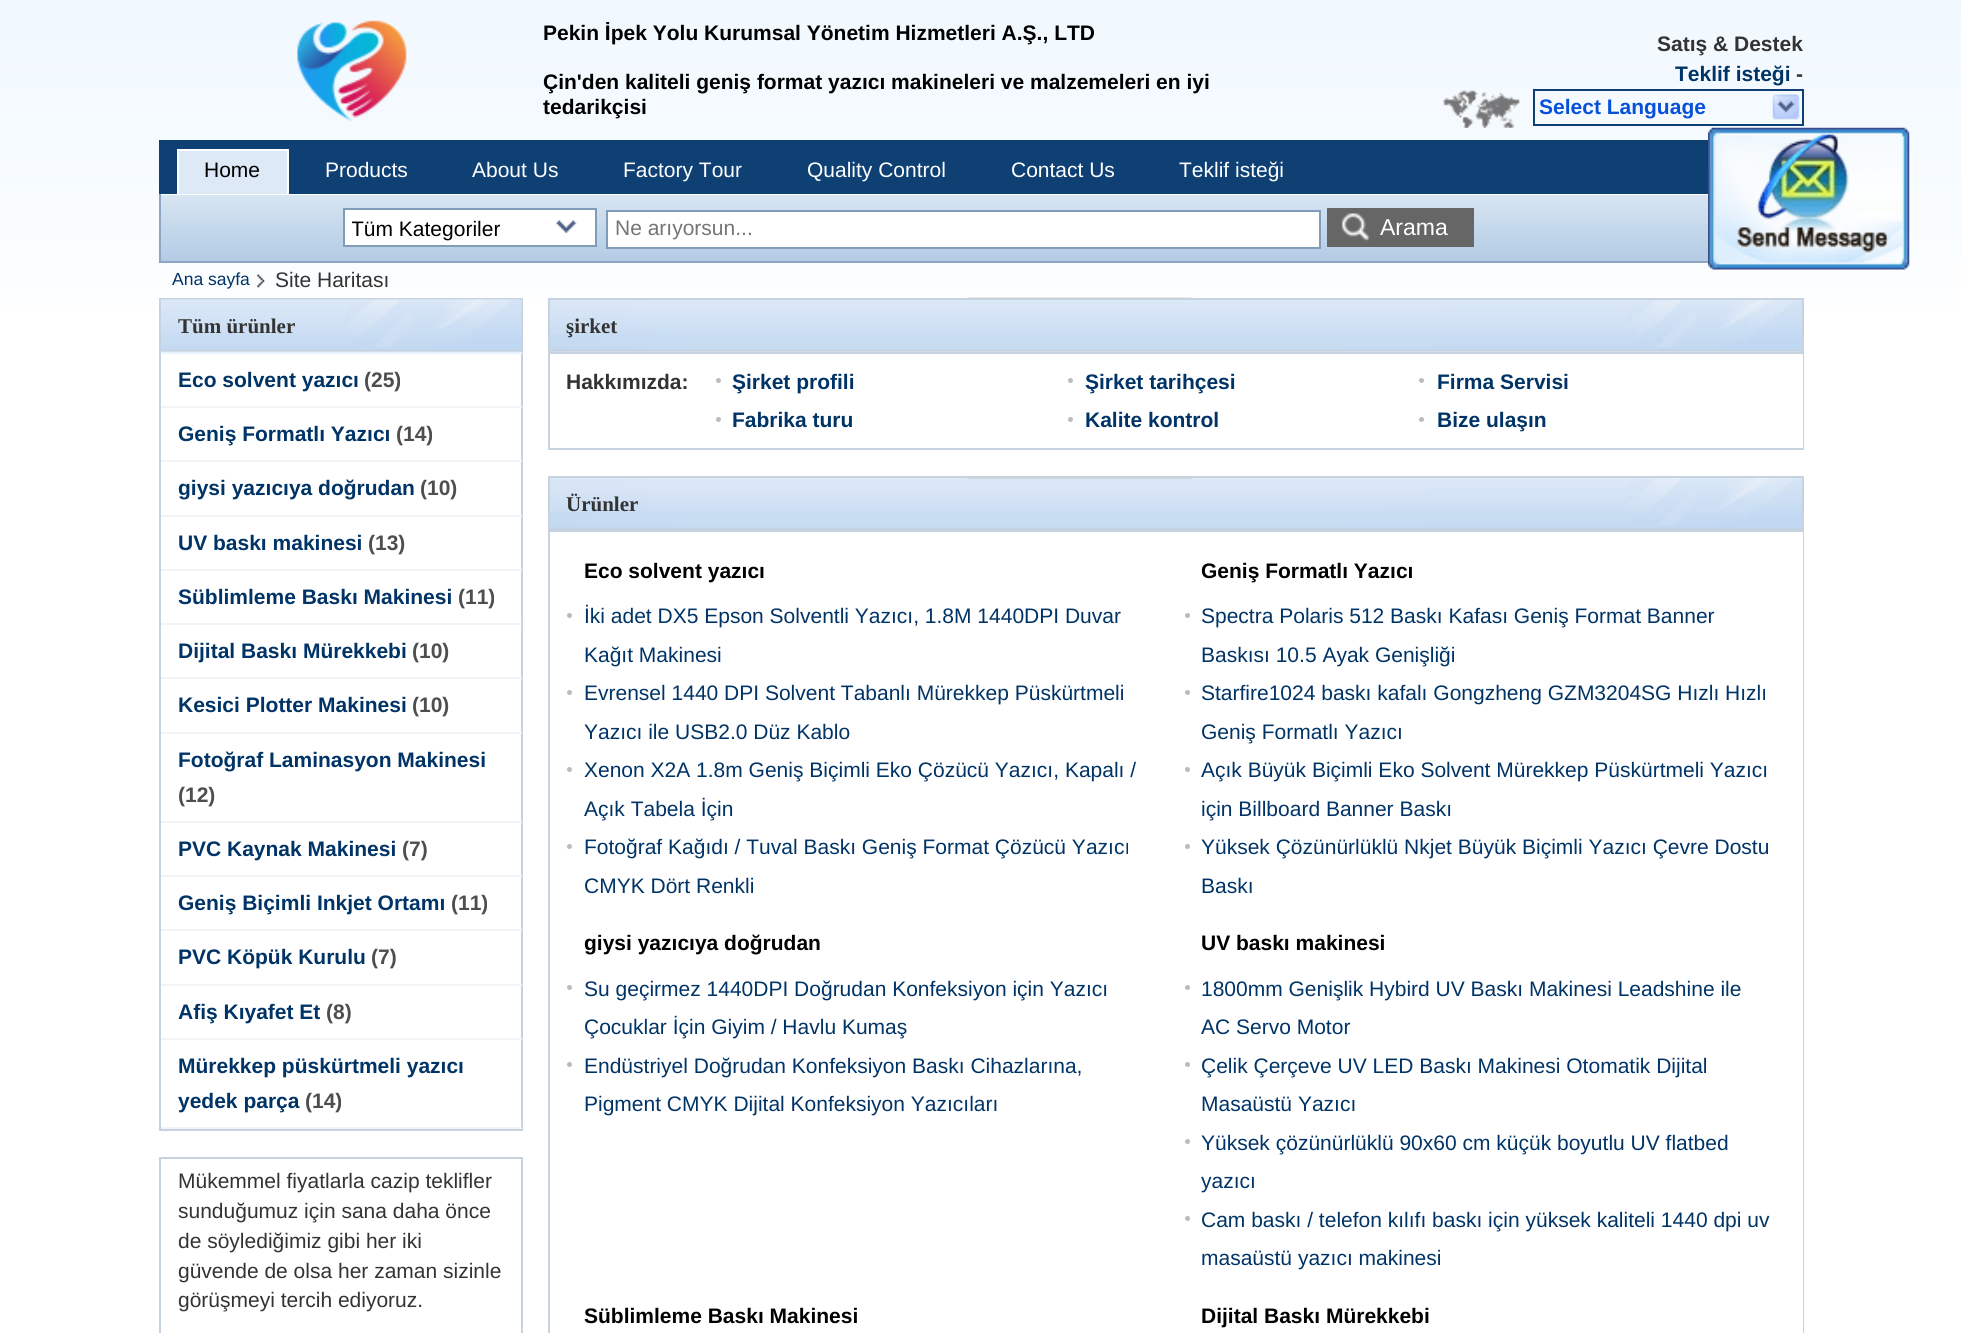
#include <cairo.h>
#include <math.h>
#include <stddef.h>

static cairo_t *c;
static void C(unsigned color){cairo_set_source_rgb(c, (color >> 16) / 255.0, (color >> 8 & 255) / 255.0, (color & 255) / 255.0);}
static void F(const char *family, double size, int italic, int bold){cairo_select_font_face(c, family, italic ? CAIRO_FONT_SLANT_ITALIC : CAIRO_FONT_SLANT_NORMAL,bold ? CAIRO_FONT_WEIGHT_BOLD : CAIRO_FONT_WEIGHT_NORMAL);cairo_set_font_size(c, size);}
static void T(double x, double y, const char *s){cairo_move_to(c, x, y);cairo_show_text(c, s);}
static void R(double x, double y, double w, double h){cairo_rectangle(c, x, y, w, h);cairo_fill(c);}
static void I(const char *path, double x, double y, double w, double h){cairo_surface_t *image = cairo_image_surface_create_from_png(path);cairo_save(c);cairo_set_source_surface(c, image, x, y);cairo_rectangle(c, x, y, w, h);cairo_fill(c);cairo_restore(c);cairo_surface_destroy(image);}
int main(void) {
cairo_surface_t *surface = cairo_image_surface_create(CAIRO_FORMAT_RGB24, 1961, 1333);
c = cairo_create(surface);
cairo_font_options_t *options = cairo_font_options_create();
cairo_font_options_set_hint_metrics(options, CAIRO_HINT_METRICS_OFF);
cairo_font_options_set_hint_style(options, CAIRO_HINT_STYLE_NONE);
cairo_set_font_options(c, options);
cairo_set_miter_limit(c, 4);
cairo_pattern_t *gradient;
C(0xffffff);
cairo_paint(c);
gradient = cairo_pattern_create_linear(981,0,981,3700);
cairo_pattern_add_color_stop_rgba(gradient,0,0.941,0.973,1,1);
cairo_pattern_add_color_stop_rgba(gradient,.1,1,1,1,1);
cairo_pattern_add_color_stop_rgba(gradient,1,1,1,1,1);
cairo_set_source(c,gradient);
cairo_pattern_destroy(gradient);
R(0,0,1961,308);
I("1.png",297,20,110,102);
F("Liberation Sans",21,0,1);
C(0x000000);
T(543,40,"Pekin İpek Yolu Kurumsal Yönetim Hizmetleri A.Ş., LTD");
T(543,89,"Çin'den kaliteli geniş format yazıcı makineleri ve malzemeleri en iyi");
T(543,114,"tedarikçisi");
C(0x333333);
T(1657,51,"Satış & Destek");
C(0x003366);
T(1675,81,"Teklif isteği");
C(0x333333);
T(1796,81,"-");
I("2.png",1443,90,77,38);
cairo_rectangle(c,1534,90,269,35);
C(0x0e4074);
cairo_stroke(c);
C(0x0750d9);
T(1539,114,"Select Language");
I("3.png",1772,94,28,26);
C(0xffffff);
R(159,194,1549,1);
C(0x8ea6c1);
R(159,261,1549,2);
R(159,193,2,70);
C(0x0e4074);
R(159,140,1549,54);
C(0xdde9f6);
R(179,151,108,43);
gradient = cairo_pattern_create_linear(982,194,982,261);
cairo_pattern_add_color_stop_rgba(gradient,0,0.847,0.898,0.949,1);
cairo_pattern_add_color_stop_rgba(gradient,1,0.702,0.8,0.898,1);
cairo_set_source(c,gradient);
cairo_pattern_destroy(gradient);
R(161,195,1547,66);
cairo_save(c);
cairo_rectangle(c,159,140,1645,54);
cairo_clip(c);
cairo_rectangle(c,178,150,110,68);
C(0xffffff);
cairo_stroke(c);
cairo_restore(c);
F("Liberation Sans",21,0,0);
C(0x000000);
T(204,177,"Home");
C(0xffffff);
T(325,177,"Products");
T(472,177,"About Us");
T(623,177,"Factory Tour");
T(807,177,"Quality Control");
T(1011,177,"Contact Us");
T(1179,177,"Teklif isteği");
cairo_rectangle(c,344,209,252,37);
C(0x7f9db9);
cairo_stroke(c);
C(0xffffff);
R(345,210,250,35);
I("4.png",556,220,21,14);
cairo_save(c);
cairo_rectangle(c,352,212,192,33);
cairo_clip(c);
C(0x000000);
T(351,236,"Tüm Kategoriler");
cairo_restore(c);
cairo_rectangle(c,607,211,713,37);
cairo_fill_preserve(c);
C(0x7f9db9);
cairo_stroke(c);
C(0x757575);
T(615,235,"Ne arıyorsun...");
C(0x666666);
R(1327,208,147,39);
I("5.png",1341,213,28,28);
F("Liberation Sans",23,0,0);
C(0xffffff);
T(1380,235,"Arama");
I("6.png",257,274,8,14);
F("Liberation Sans",17.5,0,0);
C(0x003366);
T(172,285,"Ana sayfa");
F("Liberation Sans",21,0,0);
C(0x333333);
T(275,287,"Site Haritası");
C(0xffffff);
R(159,298,1645,10);
cairo_rectangle(c,160,299,362,831);
C(0xc6d2e0);
cairo_stroke(c);
I("7.png",161,299,361,53);
C(0xe7f3ff);
R(161,352,361,2);
F("Liberation Serif",21,0,1);
C(0x333333);
T(178,333,"Tüm ürünler");
C(0xf0f4f6);
R(161,406,361,2);
F("Liberation Sans",21,0,1);
C(0x003366);
T(178,387,"Eco solvent yazıcı");
C(0x4e4e4e);
T(364,387,"(25)");
C(0xf0f4f6);
R(161,460,361,2);
C(0x003366);
T(178,441,"Geniş Formatlı Yazıcı");
C(0x4e4e4e);
T(396,441,"(14)");
C(0xf0f4f6);
R(161,515,361,2);
C(0x003366);
T(178,495,"giysi yazıcıya doğrudan");
C(0x4e4e4e);
T(420,495,"(10)");
C(0xf0f4f6);
R(161,569,361,2);
C(0x003366);
T(178,550,"UV baskı makinesi");
C(0x4e4e4e);
T(368,550,"(13)");
C(0xf0f4f6);
R(161,623,361,2);
C(0x003366);
T(178,604,"Süblimleme Baskı Makinesi");
C(0x4e4e4e);
T(458,604,"(11)");
C(0xf0f4f6);
R(161,677,361,2);
C(0x003366);
T(178,658,"Dijital Baskı Mürekkebi");
C(0x4e4e4e);
T(412,658,"(10)");
C(0xf0f4f6);
R(161,732,361,2);
C(0x003366);
T(178,712,"Kesici Plotter Makinesi");
C(0x4e4e4e);
T(412,712,"(10)");
C(0xf0f4f6);
R(161,821,361,2);
C(0x003366);
T(178,767,"Fotoğraf Laminasyon Makinesi");
C(0x4e4e4e);
T(178,802,"(12)");
C(0xf0f4f6);
R(161,875,361,2);
C(0x003366);
T(178,856,"PVC Kaynak Makinesi");
C(0x4e4e4e);
T(402,856,"(7)");
C(0xf0f4f6);
R(161,929,361,2);
C(0x003366);
T(178,910,"Geniş Biçimli Inkjet Ortamı");
C(0x4e4e4e);
T(451,910,"(11)");
C(0xf0f4f6);
R(161,984,361,2);
C(0x003366);
T(178,964,"PVC Köpük Kurulu");
C(0x4e4e4e);
T(371,964,"(7)");
C(0xf0f4f6);
R(161,1038,361,2);
C(0x003366);
T(178,1019,"Afiş Kıyafet Et");
C(0x4e4e4e);
T(326,1019,"(8)");
C(0xf0f4f6);
R(161,1127,361,2);
C(0x003366);
T(178,1073,"Mürekkep püskürtmeli yazıcı");
T(178,1108,"yedek parça");
C(0x4e4e4e);
T(305,1108,"(14)");
cairo_rectangle(c,160,1158,362,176);
C(0xc6d2e0);
cairo_stroke(c);
F("Liberation Sans",21,0,0);
C(0x333333);
T(178,1188,"Mükemmel fiyatlarla cazip teklifler");
T(178,1218,"sunduğumuz için sana daha önce");
T(178,1248,"de söylediğimiz gibi her iki");
T(178,1278,"güvende de olsa her zaman sizinle");
T(178,1307,"görüşmeyi tercih ediyoruz.");
I("8.png",547,297,1255,55);
cairo_rectangle(c,549,299,1254,54);
C(0xc6d2e0);
cairo_stroke(c);
F("Liberation Serif",21,0,1);
C(0x333333);
T(566,333,"şirket");
C(0xc6d2e0);
R(1803,354,1,96);
R(548,448,1256,2);
R(548,354,2,96);
F("Liberation Sans",21,0,1);
C(0x333333);
T(566,389,"Hakkımızda:");
C(0xbbbbbb);
cairo_new_path(c);
cairo_arc(c,718.5,380.5,2.5,0,2 * M_PI);
cairo_fill(c);
C(0x003366);
T(732,389,"Şirket profili");
C(0xbbbbbb);
cairo_new_path(c);
cairo_arc(c,1070.5,380.5,2.5,0,2 * M_PI);
cairo_fill(c);
C(0x003366);
T(1085,389,"Şirket tarihçesi");
C(0xbbbbbb);
cairo_new_path(c);
cairo_arc(c,1421.5,380.5,2.5,0,2 * M_PI);
cairo_fill(c);
C(0x003366);
T(1437,389,"Firma Servisi");
C(0xbbbbbb);
cairo_new_path(c);
cairo_arc(c,718.5,419.5,2.5,0,2 * M_PI);
cairo_fill(c);
C(0x003366);
T(732,427,"Fabrika turu");
C(0xbbbbbb);
cairo_new_path(c);
cairo_arc(c,1070.5,419.5,2.5,0,2 * M_PI);
cairo_fill(c);
C(0x003366);
T(1085,427,"Kalite kontrol");
C(0xbbbbbb);
cairo_new_path(c);
cairo_arc(c,1421.5,419.5,2.5,0,2 * M_PI);
cairo_fill(c);
C(0x003366);
T(1437,427,"Bize ulaşın");
I("9.png",547,478,1255,52);
cairo_rectangle(c,549,477,1254,54);
C(0xc6d2e0);
cairo_stroke(c);
F("Liberation Serif",21,0,1);
C(0x333333);
T(566,511,"Ürünler");
C(0xc6d2e0);
R(1803,532,1,801);
R(548,532,2,801);
F("Liberation Sans",21,0,1);
C(0x000000);
T(584,578,"Eco solvent yazıcı");
C(0xbbbbbb);
cairo_new_path(c);
cairo_arc(c,569.5,615.5,2.5,0,2 * M_PI);
cairo_fill(c);
F("Liberation Sans",21,0,0);
C(0x003366);
T(584,623,"İki adet DX5 Epson Solventli Yazıcı, 1.8M 1440DPI Duvar");
T(584,662,"Kağıt Makinesi");
C(0xbbbbbb);
cairo_new_path(c);
cairo_arc(c,569.5,692.5,2.5,0,2 * M_PI);
cairo_fill(c);
C(0x003366);
T(584,700,"Evrensel 1440 DPI Solvent Tabanlı Mürekkep Püskürtmeli");
T(584,739,"Yazıcı ile USB2.0 Düz Kablo");
C(0xbbbbbb);
cairo_new_path(c);
cairo_arc(c,569.5,769.5,2.5,0,2 * M_PI);
cairo_fill(c);
C(0x003366);
T(584,777,"Xenon X2A 1.8m Geniş Biçimli Eko Çözücü Yazıcı, Kapalı /");
T(584,816,"Açık Tabela İçin");
C(0xbbbbbb);
cairo_new_path(c);
cairo_arc(c,569.5,846.5,2.5,0,2 * M_PI);
cairo_fill(c);
C(0x003366);
T(584,854,"Fotoğraf Kağıdı / Tuval Baskı Geniş Format Çözücü Yazıcı");
T(584,893,"CMYK Dört Renkli");
F("Liberation Sans",21,0,1);
C(0x000000);
T(1201,578,"Geniş Formatlı Yazıcı");
C(0xbbbbbb);
cairo_new_path(c);
cairo_arc(c,1187.5,615.5,2.5,0,2 * M_PI);
cairo_fill(c);
F("Liberation Sans",21,0,0);
C(0x003366);
T(1201,623,"Spectra Polaris 512 Baskı Kafası Geniş Format Banner");
T(1201,662,"Baskısı 10.5 Ayak Genişliği");
C(0xbbbbbb);
cairo_new_path(c);
cairo_arc(c,1187.5,692.5,2.5,0,2 * M_PI);
cairo_fill(c);
C(0x003366);
T(1201,700,"Starfire1024 baskı kafalı Gongzheng GZM3204SG Hızlı Hızlı");
T(1201,739,"Geniş Formatlı Yazıcı");
C(0xbbbbbb);
cairo_new_path(c);
cairo_arc(c,1187.5,769.5,2.5,0,2 * M_PI);
cairo_fill(c);
C(0x003366);
T(1201,777,"Açık Büyük Biçimli Eko Solvent Mürekkep Püskürtmeli Yazıcı");
T(1201,816,"için Billboard Banner Baskı");
C(0xbbbbbb);
cairo_new_path(c);
cairo_arc(c,1187.5,846.5,2.5,0,2 * M_PI);
cairo_fill(c);
C(0x003366);
T(1201,854,"Yüksek Çözünürlüklü Nkjet Büyük Biçimli Yazıcı Çevre Dostu");
T(1201,893,"Baskı");
F("Liberation Sans",21,0,1);
C(0x000000);
T(584,950,"giysi yazıcıya doğrudan");
C(0xbbbbbb);
cairo_new_path(c);
cairo_arc(c,569.5,987.5,2.5,0,2 * M_PI);
cairo_fill(c);
F("Liberation Sans",21,0,0);
C(0x003366);
T(584,996,"Su geçirmez 1440DPI Doğrudan Konfeksiyon için Yazıcı");
T(584,1034,"Çocuklar İçin Giyim / Havlu Kumaş");
C(0xbbbbbb);
cairo_new_path(c);
cairo_arc(c,569.5,1064.5,2.5,0,2 * M_PI);
cairo_fill(c);
C(0x003366);
T(584,1073,"Endüstriyel Doğrudan Konfeksiyon Baskı Cihazlarına,");
T(584,1111,"Pigment CMYK Dijital Konfeksiyon Yazıcıları");
F("Liberation Sans",21,0,1);
C(0x000000);
T(1201,950,"UV baskı makinesi");
C(0xbbbbbb);
cairo_new_path(c);
cairo_arc(c,1187.5,987.5,2.5,0,2 * M_PI);
cairo_fill(c);
F("Liberation Sans",21,0,0);
C(0x003366);
T(1201,996,"1800mm Genişlik Hybird UV Baskı Makinesi Leadshine ile");
T(1201,1034,"AC Servo Motor");
C(0xbbbbbb);
cairo_new_path(c);
cairo_arc(c,1187.5,1064.5,2.5,0,2 * M_PI);
cairo_fill(c);
C(0x003366);
T(1201,1073,"Çelik Çerçeve UV LED Baskı Makinesi Otomatik Dijital");
T(1201,1111,"Masaüstü Yazıcı");
C(0xbbbbbb);
cairo_new_path(c);
cairo_arc(c,1187.5,1141.5,2.5,0,2 * M_PI);
cairo_fill(c);
C(0x003366);
T(1201,1150,"Yüksek çözünürlüklü 90x60 cm küçük boyutlu UV flatbed");
T(1201,1188,"yazıcı");
C(0xbbbbbb);
cairo_new_path(c);
cairo_arc(c,1187.5,1218.5,2.5,0,2 * M_PI);
cairo_fill(c);
C(0x003366);
T(1201,1227,"Cam baskı / telefon kılıfı baskı için yüksek kaliteli 1440 dpi uv");
T(1201,1265,"masaüstü yazıcı makinesi");
F("Liberation Sans",21,0,1);
C(0x000000);
T(584,1323,"Süblimleme Baskı Makinesi");
T(1201,1323,"Dijital Baskı Mürekkebi");
I("10.png",1708,127,202,143);
cairo_surface_write_to_png(surface, "o.png");
cairo_font_options_destroy(options);
cairo_destroy(c);
cairo_surface_destroy(surface);
return 0;
}
